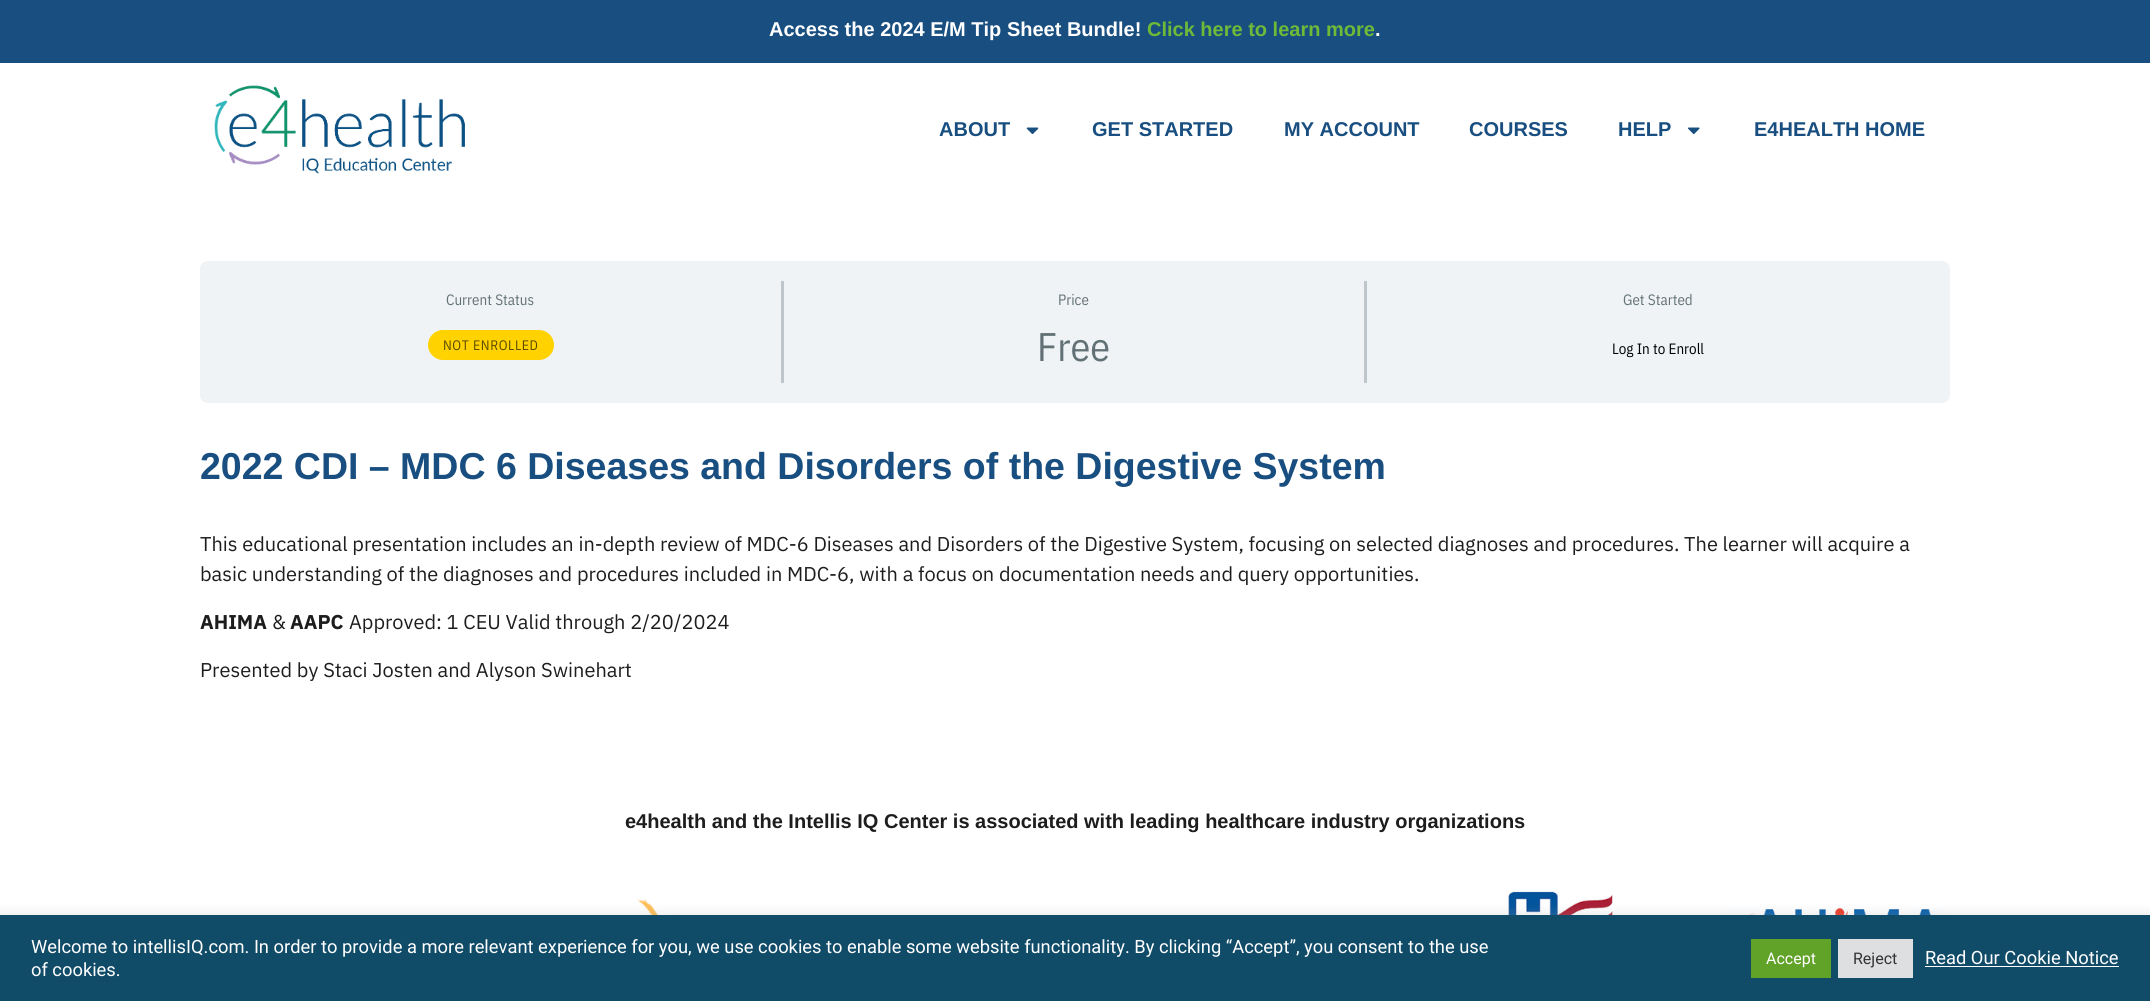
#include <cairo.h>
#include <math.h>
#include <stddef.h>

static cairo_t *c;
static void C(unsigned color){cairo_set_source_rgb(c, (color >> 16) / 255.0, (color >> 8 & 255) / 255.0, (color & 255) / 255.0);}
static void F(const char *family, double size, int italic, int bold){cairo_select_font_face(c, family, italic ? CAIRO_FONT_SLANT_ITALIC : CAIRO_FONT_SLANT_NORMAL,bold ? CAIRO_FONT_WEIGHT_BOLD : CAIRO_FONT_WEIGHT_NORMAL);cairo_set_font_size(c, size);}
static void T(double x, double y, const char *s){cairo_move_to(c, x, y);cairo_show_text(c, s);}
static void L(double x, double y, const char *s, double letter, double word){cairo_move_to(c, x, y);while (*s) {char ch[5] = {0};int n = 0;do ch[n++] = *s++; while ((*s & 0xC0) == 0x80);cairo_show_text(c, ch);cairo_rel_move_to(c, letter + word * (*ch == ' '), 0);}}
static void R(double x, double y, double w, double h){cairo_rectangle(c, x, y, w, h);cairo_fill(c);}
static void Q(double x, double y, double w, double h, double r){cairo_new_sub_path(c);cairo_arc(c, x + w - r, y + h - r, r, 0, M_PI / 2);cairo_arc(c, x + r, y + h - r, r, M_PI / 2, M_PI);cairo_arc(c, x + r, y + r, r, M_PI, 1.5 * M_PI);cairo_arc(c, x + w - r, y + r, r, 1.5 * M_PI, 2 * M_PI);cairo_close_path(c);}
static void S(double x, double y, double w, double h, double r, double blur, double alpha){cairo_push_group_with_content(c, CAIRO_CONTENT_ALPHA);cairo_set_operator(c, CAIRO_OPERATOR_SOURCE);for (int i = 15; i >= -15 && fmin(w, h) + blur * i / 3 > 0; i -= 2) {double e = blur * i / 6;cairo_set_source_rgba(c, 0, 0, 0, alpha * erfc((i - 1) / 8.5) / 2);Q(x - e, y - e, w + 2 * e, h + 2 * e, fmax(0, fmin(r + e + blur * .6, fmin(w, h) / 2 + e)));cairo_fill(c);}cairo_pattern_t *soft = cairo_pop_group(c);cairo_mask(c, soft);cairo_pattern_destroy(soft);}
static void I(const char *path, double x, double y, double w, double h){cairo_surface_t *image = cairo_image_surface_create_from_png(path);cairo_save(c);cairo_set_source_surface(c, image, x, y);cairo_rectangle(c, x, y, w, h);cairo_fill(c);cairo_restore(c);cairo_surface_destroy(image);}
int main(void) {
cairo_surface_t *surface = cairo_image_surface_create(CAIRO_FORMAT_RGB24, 2150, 1001);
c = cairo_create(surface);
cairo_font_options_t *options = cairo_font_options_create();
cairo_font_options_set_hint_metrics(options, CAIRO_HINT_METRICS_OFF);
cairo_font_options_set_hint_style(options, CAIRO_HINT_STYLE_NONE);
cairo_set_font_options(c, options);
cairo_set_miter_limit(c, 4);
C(0xffffff);
cairo_paint(c);
C(0x184e80);
R(0,0,2150,63);
F("Liberation Sans",20,0,1);
C(0xffffff);
T(769,36,"Access the 2024 E/M Tip Sheet Bundle!");
C(0x6fba38);
T(1147,36,"Click here to learn more");
C(0xffffff);
T(1375,36,".");
I("1.png",214,85,251,89);
C(0x184e80);
T(939,136,"ABOUT");
I("2.png",1026,127,13,7);
T(1092,136,"GET STARTED");
T(1284,136,"MY ACCOUNT");
T(1469,136,"COURSES");
T(1618,136,"HELP");
I("3.png",1688,127,12,7);
T(1754,136,"E4HEALTH HOME");
C(0xf0f3f6);
Q(200,261,1750,142,8);
cairo_fill(c);
C(0xbec5cb);
R(781,281,3,102);
F("IBM Plex Sans Condensed",15,0,0);
C(0x617175);
T(446,305,"Current Status");
C(0xffd200);
Q(428,330,126,30,15);
cairo_fill(c);
F("IBM Plex Sans Condensed",13.75,0,0);
C(0x594a00);
L(443,350,"NOT ENROLLED",.6,0);
C(0xbec5cb);
R(1364,281,3,102);
F("IBM Plex Sans Condensed",15,0,0);
C(0x617175);
T(1058,305,"Price");
F("IBM Plex Sans Condensed",40,0,0);
T(1037,361,"Free");
F("IBM Plex Sans Condensed",15,0,0);
T(1623,305,"Get Started");
C(0x000000);
T(1612,354,"Log In to Enroll");
F("Liberation Sans",37.5,0,1);
C(0x184e80);
T(200,479,"2022 CDI – MDC 6 Diseases and Disorders of the Digestive System");
F("IBM Plex Sans",20,0,0);
C(0x1d1d1d);
T(200,551,"This educational presentation includes an in-depth review of MDC-6 Diseases and Disorders of the Digestive System, focusing on selected diagnoses and procedures. The learner will acquire a");
T(200,581,"basic understanding of the diagnoses and procedures included in MDC-6, with a focus on documentation needs and query opportunities.");
F("IBM Plex Sans",20,0,1);
T(200,629,"AHIMA");
F("IBM Plex Sans",20,0,0);
T(272,629,"&");
F("IBM Plex Sans",20,0,1);
T(290,629,"AAPC");
F("IBM Plex Sans",20,0,0);
T(349,629,"Approved: 1 CEU Valid through 2/20/2024");
T(200,677,"Presented by Staci Josten and Alyson Swinehart");
F("Liberation Sans",20,0,1);
T(625,828,"e4health and the Intellis IQ Center is associated with leading healthcare industry organizations");
I("4.png",508,899,219,16);
I("5.png",1418,891,225,24);
I("6.png",1722,908,226,7);
C(0xacabab);
S(0,914,2150,86,0,6,.3);
C(0x104b68);
R(0,915,2150,86);
F("Roboto",18.33,0,0);
C(0xffffff);
T(31,953,"Welcome to intellisIQ.com. In order to provide a more relevant experience for you, we use cookies to enable some website functionality. By clicking “Accept”, you consent to the use");
T(31,976,"of cookies.");
C(0x61a229);
R(1751,939,80,39);
F("Roboto",16,0,0);
C(0xffffff);
T(1766,964,"Accept");
C(0xdedfe0);
R(1838,939,75,39);
C(0x333333);
T(1853,964,"Reject");
F("Roboto",18.33,0,0);
C(0xffffff);
T(1925,964,"Read Our Cookie Notice");
R(1925,966,194,1);
cairo_surface_write_to_png(surface, "o.png");
cairo_font_options_destroy(options);
cairo_destroy(c);
cairo_surface_destroy(surface);
return 0;
}
